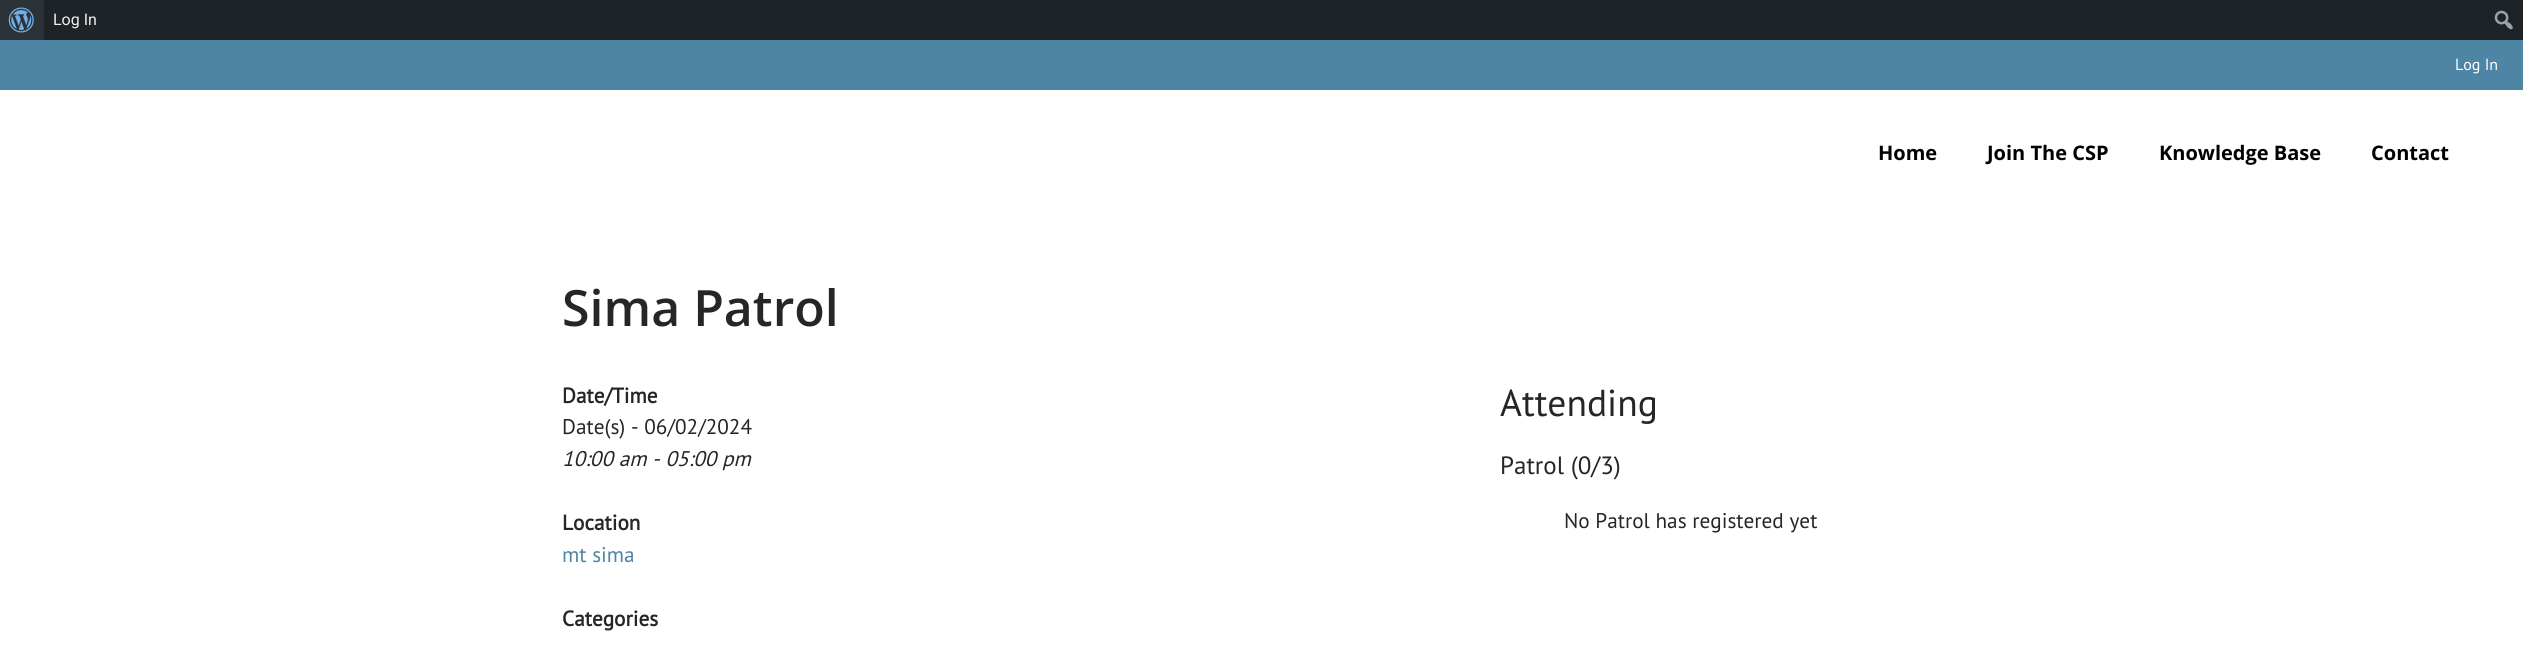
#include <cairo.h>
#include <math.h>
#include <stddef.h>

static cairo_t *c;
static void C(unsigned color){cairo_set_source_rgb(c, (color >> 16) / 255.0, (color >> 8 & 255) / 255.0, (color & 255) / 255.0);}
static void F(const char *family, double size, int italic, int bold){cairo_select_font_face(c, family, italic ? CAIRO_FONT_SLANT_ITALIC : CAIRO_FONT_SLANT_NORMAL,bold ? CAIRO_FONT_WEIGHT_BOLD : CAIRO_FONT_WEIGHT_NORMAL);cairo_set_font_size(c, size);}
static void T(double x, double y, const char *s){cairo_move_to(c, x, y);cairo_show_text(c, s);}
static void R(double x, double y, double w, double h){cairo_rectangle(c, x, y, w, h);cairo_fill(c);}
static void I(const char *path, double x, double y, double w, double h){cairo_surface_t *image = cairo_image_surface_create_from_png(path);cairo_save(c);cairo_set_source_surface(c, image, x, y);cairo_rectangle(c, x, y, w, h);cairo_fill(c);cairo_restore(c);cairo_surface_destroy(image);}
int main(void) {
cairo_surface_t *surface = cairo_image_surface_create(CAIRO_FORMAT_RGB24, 2523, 648);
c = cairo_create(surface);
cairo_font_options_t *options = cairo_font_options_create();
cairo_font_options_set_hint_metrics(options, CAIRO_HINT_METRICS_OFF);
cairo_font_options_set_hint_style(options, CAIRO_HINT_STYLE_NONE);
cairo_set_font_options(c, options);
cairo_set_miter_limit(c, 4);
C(0xffffff);
cairo_paint(c);
C(0x1d2327);
R(44,0,2479,40);
C(0x2c3338);
R(0,0,44,40);
I("1.png",8,7,26,26);
F("Roboto",16,0,0);
C(0xf0f0f1);
T(53,25,"Log In");
I("2.png",2494,10,19,20);
C(0x4e84a4);
R(0,40,2523,50);
F("PT Sans",16,0,0);
C(0xffffff);
T(2455,70,"Log In");
F("Open Sans",20,0,1);
C(0x000000);
T(1878,160,"Home");
T(1987,160,"Join The CSP");
T(2159,160,"Knowledge Base");
T(2371,160,"Contact");
F("Open Sans SemiBold",50,0,0);
C(0x262626);
T(562,326,"Sima Patrol");
F("PT Sans",21.25,0,1);
T(562,403,"Date/Time");
F("PT Sans",21.25,0,0);
T(562,434,"Date(s) - 06/02/2024");
F("PT Sans",21.25,1,0);
T(562,466,"10:00 am - 05:00 pm");
F("PT Sans",37.5,0,0);
T(1500,416,"Attending");
F("PT Sans",25,0,0);
T(1500,474,"Patrol (0/3)");
F("PT Sans",21.25,0,0);
T(1564,528,"No Patrol has registered yet");
F("PT Sans",21.25,0,1);
T(562,530,"Location");
F("PT Sans",21.25,0,0);
C(0x4e84a4);
T(562,562,"mt sima");
F("PT Sans",21.25,0,1);
C(0x262626);
T(562,626,"Categories");
cairo_surface_write_to_png(surface, "o.png");
cairo_font_options_destroy(options);
cairo_destroy(c);
cairo_surface_destroy(surface);
return 0;
}
